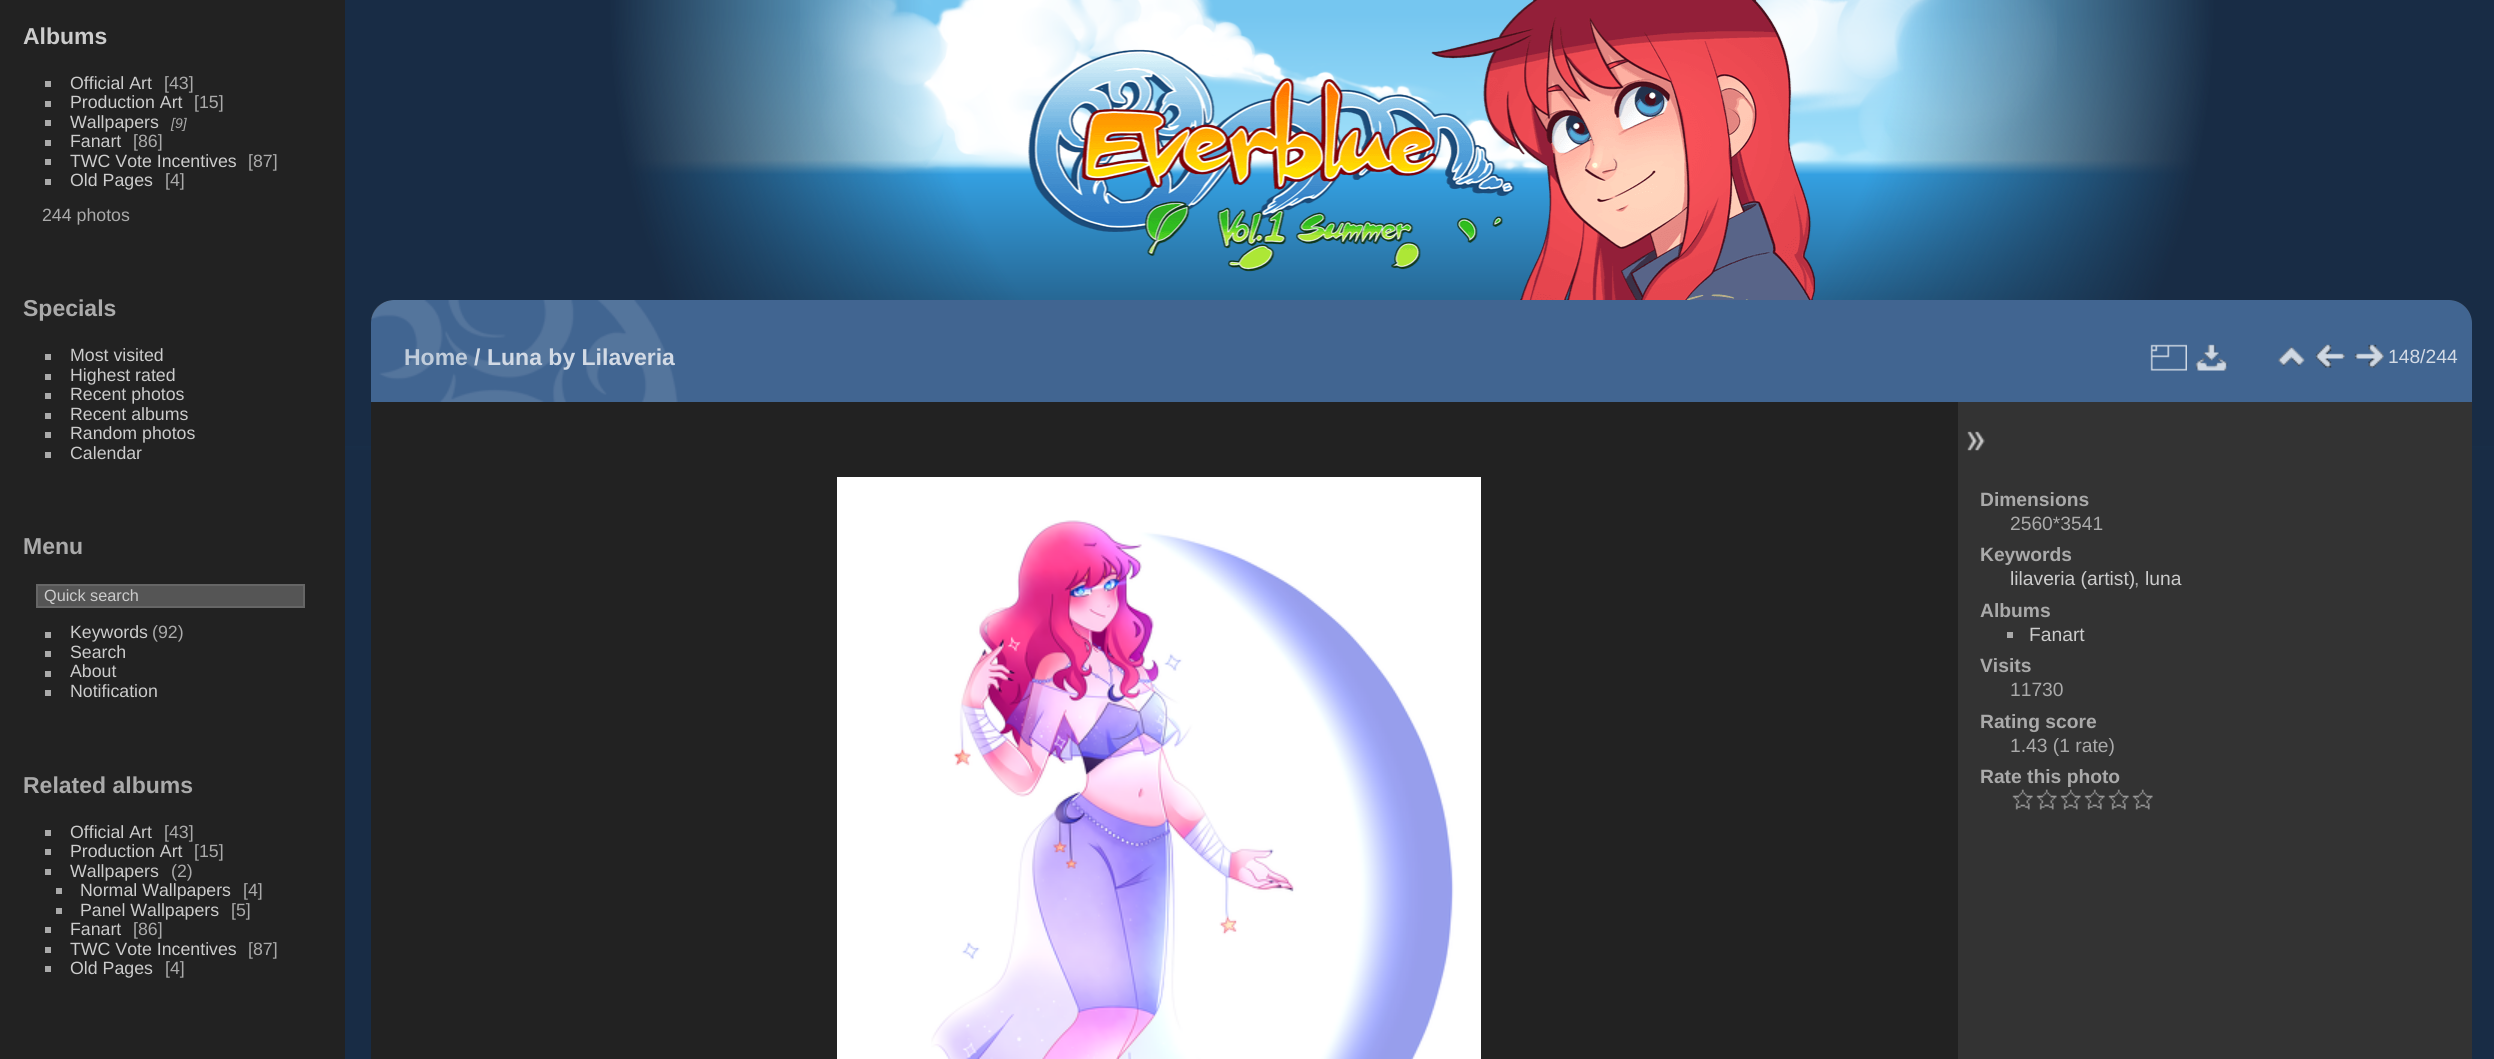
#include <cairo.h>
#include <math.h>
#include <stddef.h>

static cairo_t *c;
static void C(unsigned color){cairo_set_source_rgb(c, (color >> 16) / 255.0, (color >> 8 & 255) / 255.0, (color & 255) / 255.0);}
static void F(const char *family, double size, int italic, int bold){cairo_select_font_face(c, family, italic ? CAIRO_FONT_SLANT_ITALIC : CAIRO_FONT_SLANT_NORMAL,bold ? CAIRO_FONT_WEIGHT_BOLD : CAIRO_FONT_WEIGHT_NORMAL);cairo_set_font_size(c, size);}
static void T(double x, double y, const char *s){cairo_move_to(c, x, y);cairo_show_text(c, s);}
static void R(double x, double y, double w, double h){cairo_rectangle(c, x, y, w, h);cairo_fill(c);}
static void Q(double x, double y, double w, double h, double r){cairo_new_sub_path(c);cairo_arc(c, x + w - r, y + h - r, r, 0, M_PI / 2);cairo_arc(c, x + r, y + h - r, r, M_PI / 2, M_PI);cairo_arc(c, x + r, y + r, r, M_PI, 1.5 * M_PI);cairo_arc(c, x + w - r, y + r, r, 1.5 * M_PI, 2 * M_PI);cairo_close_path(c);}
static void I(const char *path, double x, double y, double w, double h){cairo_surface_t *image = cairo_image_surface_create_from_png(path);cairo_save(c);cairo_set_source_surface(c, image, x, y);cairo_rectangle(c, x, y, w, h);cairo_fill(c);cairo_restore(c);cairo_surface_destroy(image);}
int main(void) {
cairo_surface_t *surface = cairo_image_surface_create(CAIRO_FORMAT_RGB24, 2494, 1059);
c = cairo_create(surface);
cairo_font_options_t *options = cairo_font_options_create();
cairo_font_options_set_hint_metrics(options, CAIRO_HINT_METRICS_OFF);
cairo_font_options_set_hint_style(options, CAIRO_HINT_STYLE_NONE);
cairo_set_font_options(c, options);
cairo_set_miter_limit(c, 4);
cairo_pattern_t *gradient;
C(0xffffff);
cairo_paint(c);
gradient = cairo_pattern_create_linear(1412,0,1412,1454);
cairo_pattern_add_color_stop_rgba(gradient,.01,0.459,0.776,0.941,1);
cairo_pattern_add_color_stop_rgba(gradient,.11,0.639,0.882,0.98,1);
cairo_pattern_add_color_stop_rgba(gradient,.12,0.204,0.627,0.882,1);
cairo_pattern_add_color_stop_rgba(gradient,.21,0.149,0.396,0.569,1);
cairo_pattern_add_color_stop_rgba(gradient,.31,0.094,0.173,0.271,1);
cairo_set_source(c,gradient);
cairo_pattern_destroy(gradient);
R(345,0,2149,1059);
gradient = cairo_pattern_create_radial(1412,0,0,1412,0,1574);
cairo_pattern_add_color_stop_rgba(gradient,.31,0.094,0.173,0.271,0);
cairo_pattern_add_color_stop_rgba(gradient,.51,0.094,0.173,0.271,1);
cairo_pattern_add_color_stop_rgba(gradient,.76,0.094,0.173,0.271,1);
cairo_set_source(c,gradient);
cairo_pattern_destroy(gradient);
R(345,0,2149,446);
C(0x222222);
R(0,0,345,1059);
F("Liberation Sans",23,0,1);
C(0xcccccc);
T(23,44,"Albums");
C(0xaaaaaa);
R(45,81,6,6);
F("Liberation Sans",17.75,0,0);
C(0xcccccc);
T(70,89,"Official Art");
C(0xaaaaaa);
T(164,89,"[43]");
R(45,101,6,6);
C(0xcccccc);
T(70,108,"Production Art");
C(0xaaaaaa);
T(194,108,"[15]");
R(45,120,6,6);
C(0xcccccc);
T(70,128,"Wallpapers");
F("Liberation Sans",14,1,0);
C(0xaaaaaa);
T(171,128,"[9]");
R(45,140,6,6);
F("Liberation Sans",17.75,0,0);
C(0xcccccc);
T(70,147,"Fanart");
C(0xaaaaaa);
T(133,147,"[86]");
R(45,159,6,6);
C(0xcccccc);
T(70,167,"TWC Vote Incentives");
C(0xaaaaaa);
T(248,167,"[87]");
R(45,179,6,6);
C(0xcccccc);
T(70,186,"Old Pages");
C(0xaaaaaa);
T(165,186,"[4]");
T(42,221,"244 photos");
F("Liberation Sans",23,0,1);
T(23,316,"Specials");
R(45,354,6,6);
F("Liberation Sans",17.75,0,0);
C(0xcccccc);
T(70,361,"Most visited");
C(0xaaaaaa);
R(45,374,6,6);
C(0xcccccc);
T(70,381,"Highest rated");
C(0xaaaaaa);
R(45,393,6,6);
C(0xcccccc);
T(70,400,"Recent photos");
C(0xaaaaaa);
R(45,413,6,6);
C(0xcccccc);
T(70,420,"Recent albums");
C(0xaaaaaa);
R(45,432,6,6);
C(0xcccccc);
T(70,439,"Random photos");
C(0xaaaaaa);
R(45,452,6,6);
C(0xcccccc);
T(70,459,"Calendar");
F("Liberation Sans",23,0,1);
C(0xaaaaaa);
T(23,554,"Menu");
C(0x555555);
cairo_rectangle(c,37,585,267,22);
cairo_fill_preserve(c);
C(0x666666);
cairo_stroke(c);
F("Liberation Sans",16.25,0,0);
C(0xcccccc);
T(44,601,"Quick search");
C(0xaaaaaa);
R(45,632,6,6);
F("Liberation Sans",17.75,0,0);
C(0xcccccc);
T(70,638,"Keywords");
C(0xaaaaaa);
T(152,638,"(92)");
R(45,651,6,6);
C(0xcccccc);
T(70,658,"Search");
C(0xaaaaaa);
R(45,671,6,6);
C(0xcccccc);
T(70,677,"About");
C(0xaaaaaa);
R(45,690,6,6);
C(0xcccccc);
T(70,697,"Notification");
F("Liberation Sans",23,0,1);
C(0xaaaaaa);
T(23,793,"Related albums");
R(45,830,6,6);
F("Liberation Sans",17.75,0,0);
C(0xcccccc);
T(70,838,"Official Art");
C(0xaaaaaa);
T(164,838,"[43]");
R(45,849,6,6);
C(0xcccccc);
T(70,857,"Production Art");
C(0xaaaaaa);
T(194,857,"[15]");
R(45,869,6,6);
C(0xcccccc);
T(70,877,"Wallpapers");
C(0xaaaaaa);
T(171,877,"(2)");
R(56,888,6,6);
C(0xcccccc);
T(80,896,"Normal Wallpapers");
C(0xaaaaaa);
T(243,896,"[4]");
R(56,908,6,6);
C(0xcccccc);
T(80,916,"Panel Wallpapers");
C(0xaaaaaa);
T(231,916,"[5]");
R(45,927,6,6);
C(0xcccccc);
T(70,935,"Fanart");
C(0xaaaaaa);
T(133,935,"[86]");
R(45,947,6,6);
C(0xcccccc);
T(70,955,"TWC Vote Incentives");
C(0xaaaaaa);
T(248,955,"[87]");
R(45,966,6,6);
C(0xcccccc);
T(70,974,"Old Pages");
C(0xaaaaaa);
T(165,974,"[4]");
I("1.png",800,0,1257,178);
I("2.png",1028,0,788,300);
C(0x222222);
Q(371,300,2101,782,23);
cairo_fill(c);
C(0x416591);
cairo_new_path(c);
cairo_move_to(c,394,300);
cairo_line_to(c,2449,300);
cairo_curve_to(c,2461.5,300,2472,310.5,2472,323);
cairo_line_to(c,2472,402);
cairo_line_to(c,371,402);
cairo_line_to(c,371,323);
cairo_curve_to(c,371,310.5,381.5,300,394,300);
cairo_close_path(c);
cairo_fill(c);
I("3.png",371,300,307,102);
F("Liberation Sans",23,0,1);
C(0xc1cddb);
T(404,365,"Home");
C(0xd2dae5);
T(474,365,"/");
T(487,365,"Luna by Lilaveria");
I("4.png",2150,344,37,27);
I("5.png",2195,344,33,27);
I("6.png",2278,346,27,21);
I("7.png",2315,344,30,24);
I("8.png",2354,344,30,24);
F("Liberation Sans",19.25,0,0);
T(2388,363,"148/244");
C(0x333333);
R(1958,402,514,657);
I("9.png",1967,431,18,20);
C(0xffffff);
R(837,477,644,582);
I("10.png",931,520,523,539);
F("Liberation Sans",19.25,0,1);
C(0xaaaaaa);
T(1980,506,"Dimensions");
F("Liberation Sans",19.25,0,0);
T(2010,530,"2560*3541");
F("Liberation Sans",19.25,0,1);
T(1980,561,"Keywords");
F("Liberation Sans",19.25,0,0);
C(0xcccccc);
T(2010,585,"lilaveria (artist)");
C(0xaaaaaa);
T(2134,585,",");
C(0xcccccc);
T(2145,585,"luna");
F("Liberation Sans",19.25,0,1);
C(0xaaaaaa);
T(1980,617,"Albums");
R(2007,632,6,6);
F("Liberation Sans",19.25,0,0);
C(0xcccccc);
T(2029,641,"Fanart");
F("Liberation Sans",19.25,0,1);
C(0xaaaaaa);
T(1980,672,"Visits");
F("Liberation Sans",19.25,0,0);
T(2010,696,"11730");
F("Liberation Sans",19.25,0,1);
T(1980,728,"Rating score");
F("Liberation Sans",19.25,0,0);
T(2010,752,"1.43 (1 rate)");
F("Liberation Sans",19.25,0,1);
T(1980,783,"Rate this photo");
I("11.png",2012,789,21,21);
I("12.png",2036,789,21,21);
I("12.png",2060,789,21,21);
I("11.png",2084,789,21,21);
I("11.png",2108,789,21,21);
I("12.png",2132,789,21,21);
cairo_surface_write_to_png(surface, "o.png");
cairo_font_options_destroy(options);
cairo_destroy(c);
cairo_surface_destroy(surface);
return 0;
}
